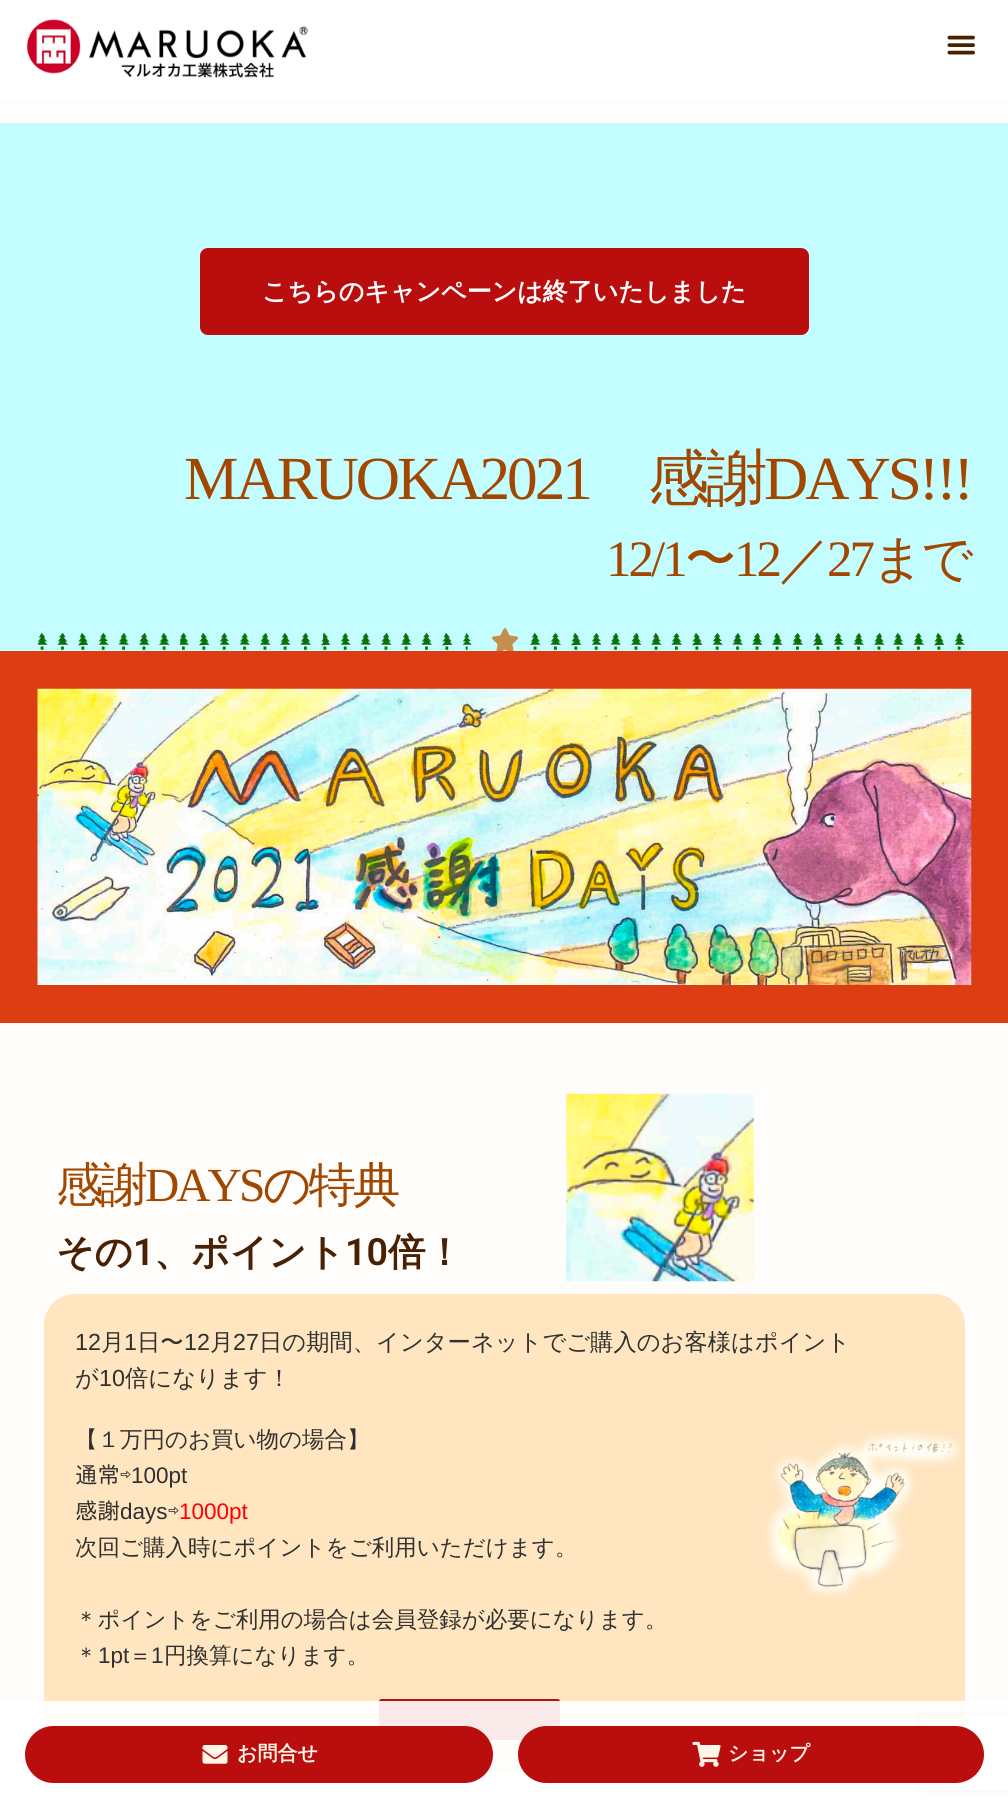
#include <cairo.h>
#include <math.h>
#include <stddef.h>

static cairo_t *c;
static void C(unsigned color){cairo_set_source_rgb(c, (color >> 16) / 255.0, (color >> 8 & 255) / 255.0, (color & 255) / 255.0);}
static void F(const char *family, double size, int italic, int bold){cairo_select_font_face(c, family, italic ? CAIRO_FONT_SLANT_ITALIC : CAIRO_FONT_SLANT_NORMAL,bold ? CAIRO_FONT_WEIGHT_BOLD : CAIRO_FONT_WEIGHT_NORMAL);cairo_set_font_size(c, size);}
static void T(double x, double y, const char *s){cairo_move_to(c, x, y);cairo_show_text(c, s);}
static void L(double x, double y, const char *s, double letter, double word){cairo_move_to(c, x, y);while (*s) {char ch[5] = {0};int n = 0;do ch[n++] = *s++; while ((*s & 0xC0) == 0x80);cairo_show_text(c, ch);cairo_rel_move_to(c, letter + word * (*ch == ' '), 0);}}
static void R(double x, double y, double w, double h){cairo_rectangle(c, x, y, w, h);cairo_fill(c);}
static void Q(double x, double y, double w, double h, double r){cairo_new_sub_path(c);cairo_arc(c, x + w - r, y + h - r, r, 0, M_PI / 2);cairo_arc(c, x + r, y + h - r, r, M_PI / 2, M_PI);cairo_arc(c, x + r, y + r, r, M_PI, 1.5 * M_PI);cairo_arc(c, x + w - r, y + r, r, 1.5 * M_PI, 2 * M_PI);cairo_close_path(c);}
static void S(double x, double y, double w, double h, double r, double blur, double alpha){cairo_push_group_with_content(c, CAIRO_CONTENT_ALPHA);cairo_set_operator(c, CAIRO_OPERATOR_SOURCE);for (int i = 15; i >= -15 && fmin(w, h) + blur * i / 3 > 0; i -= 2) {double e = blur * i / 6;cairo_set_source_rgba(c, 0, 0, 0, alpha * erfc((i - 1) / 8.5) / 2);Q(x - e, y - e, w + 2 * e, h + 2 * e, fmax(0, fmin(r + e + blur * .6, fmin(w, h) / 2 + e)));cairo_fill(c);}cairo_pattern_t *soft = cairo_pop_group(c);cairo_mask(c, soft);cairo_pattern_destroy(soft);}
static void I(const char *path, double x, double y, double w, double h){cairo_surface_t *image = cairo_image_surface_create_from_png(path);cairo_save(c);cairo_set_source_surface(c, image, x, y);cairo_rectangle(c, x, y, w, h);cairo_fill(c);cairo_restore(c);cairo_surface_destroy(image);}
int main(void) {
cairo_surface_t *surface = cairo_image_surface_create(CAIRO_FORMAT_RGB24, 1008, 1807);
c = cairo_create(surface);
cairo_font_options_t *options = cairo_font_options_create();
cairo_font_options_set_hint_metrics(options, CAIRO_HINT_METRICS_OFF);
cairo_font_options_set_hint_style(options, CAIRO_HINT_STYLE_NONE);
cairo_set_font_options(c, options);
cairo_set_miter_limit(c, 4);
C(0xfffdfc);
cairo_paint(c);
C(0xffffff);
R(0,0,1008,100);
I("1.png",26,19,282,59);
I("2.png",947,35,28,20);
C(0xc3fdff);
R(0,123,1008,528);
C(0xba0e0e);
Q(200,248,609,87,8);
cairo_fill(c);
F("WenQuanYi Zen Hei",25,0,1);
C(0xffffff);
T(262,300,"こちらのキャンペーンは終了いたしました");
F("Liberation Serif",61.25,0,0);
C(0xa24700);
L(184,499,"MARUOKA2021",-3,0);
F("WenQuanYi Zen Hei Medium",61.25,0,0);
L(648,499,"感謝",-3,0);
F("Liberation Serif",61.25,0,0);
L(764,499,"DAYS!!!",-3,0);
F("Liberation Serif",51,0,0);
L(606,576,"12/1",-3,0);
F("WenQuanYi Zen Hei Medium",51,0,0);
L(685,576,"〜",-3,0);
F("Liberation Serif",51,0,0);
L(734,576,"12",-3,0);
F("WenQuanYi Zen Hei Medium",51,0,0);
L(779,576,"／",-3,0);
F("Liberation Serif",51,0,0);
L(827,576,"27",-3,0);
F("WenQuanYi Zen Hei Medium",51,0,0);
L(872,576,"まで",-3,0);
I("3.png",37,632,435,18);
I("4.png",492,628,26,23);
I("5.png",530,632,435,18);
C(0xdd3d12);
R(0,651,1008,372);
I("6.png",37,688,935,297);
F("WenQuanYi Zen Hei Medium",47.5,0,0);
C(0xa24700);
L(56,1201,"感謝",-3,0);
F("Liberation Serif",47.5,0,0);
L(145,1201,"DAYS",-3,0);
F("WenQuanYi Zen Hei Medium",47.5,0,0);
L(263,1201,"の特典",-3,0);
F("WenQuanYi Zen Hei",37.5,0,1);
C(0x492102);
T(56,1265,"その");
F("Roboto SemiBold",37.5,0,0);
T(133,1265,"1");
F("WenQuanYi Zen Hei",37.5,0,1);
T(154,1265,"、ポイント");
F("Roboto SemiBold",37.5,0,0);
T(345,1265,"10");
F("WenQuanYi Zen Hei",37.5,0,1);
T(388,1265,"倍！");
I("7.png",566,1093,188,189);
C(0xffe5c0);
Q(44,1294,921,477,31);
cairo_fill(c);
F("Liberation Sans",23.3,0,0);
C(0x303030);
T(75,1350,"12");
F("WenQuanYi Zen Hei Medium",23.3,0,0);
T(101,1350,"月");
F("Liberation Sans",23.3,0,0);
T(124,1350,"1");
F("WenQuanYi Zen Hei Medium",23.3,0,0);
T(137,1350,"日〜");
F("Liberation Sans",23.3,0,0);
T(184,1350,"12");
F("WenQuanYi Zen Hei Medium",23.3,0,0);
T(210,1350,"月");
F("Liberation Sans",23.3,0,0);
T(233,1350,"27");
F("WenQuanYi Zen Hei Medium",23.3,0,0);
T(259,1350,"日の期間、インターネットでご購入のお客様はポイント");
T(75,1386,"が");
F("Liberation Sans",23.3,0,0);
T(99,1386,"10");
F("WenQuanYi Zen Hei Medium",23.3,0,0);
T(125,1386,"倍になります！");
F("WenQuanYi Zen Hei Medium",22.5,0,0);
T(75,1447,"【１万円のお買い物の場合】");
F("IPAPGothic",22.5,0,0);
T(75,1483,"通常⇨");
F("Liberation Sans",22.5,0,0);
T(131,1483,"100pt");
F("IPAPGothic",22.5,0,0);
T(75,1519,"感謝");
F("Liberation Sans",22.5,0,0);
T(120,1519,"days");
F("IPAPGothic",22.5,0,0);
T(168,1519,"⇨");
F("Liberation Sans",22.5,0,0);
C(0xff0000);
T(179,1519,"1000pt");
F("WenQuanYi Zen Hei Medium",22.5,0,0);
C(0x303030);
T(75,1555,"次回ご購入時にポイントをご利用いただけます。");
T(75,1627,"＊ポイントをご利用の場合は会員登録が必要になります。");
T(75,1663,"＊");
F("Liberation Sans",22.5,0,0);
T(98,1663,"1pt");
F("WenQuanYi Zen Hei Medium",22.5,0,0);
T(129,1663,"＝");
F("Liberation Sans",22.5,0,0);
T(151,1663,"1");
F("WenQuanYi Zen Hei Medium",22.5,0,0);
T(164,1663,"円換算になります。");
C(0xba0e0e);
Q(379,1699,181,41,2.5);
cairo_fill(c);
I("8.png",765,1430,197,168);
cairo_save(c);
cairo_set_fill_rule(c,CAIRO_FILL_RULE_EVEN_ODD);
cairo_new_path(c);
cairo_move_to(c,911,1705);
cairo_line_to(c,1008,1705);
cairo_line_to(c,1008,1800);
cairo_line_to(c,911,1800);
cairo_close_path(c);
cairo_move_to(c,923.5,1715);
cairo_line_to(c,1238.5,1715);
cairo_curve_to(c,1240,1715,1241,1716,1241,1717.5);
cairo_line_to(c,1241,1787.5);
cairo_curve_to(c,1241,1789,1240,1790,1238.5,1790);
cairo_line_to(c,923.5,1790);
cairo_curve_to(c,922,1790,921,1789,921,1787.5);
cairo_line_to(c,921,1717.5);
cairo_curve_to(c,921,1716,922,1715,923.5,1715);
cairo_close_path(c);
cairo_clip(c);
C(0x808080);
S(921,1715,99,75,2.5,3,1);
cairo_restore(c);
cairo_set_source_rgba(c,1,1,1,0.91);
R(0,1701,1008,106);
C(0xba0e0e);
Q(25,1726,468,57,28.5);
cairo_fill(c);
I("9.png",202,1745,26,19);
F("WenQuanYi Zen Hei",20,0,1);
C(0xfff6e8);
T(237,1760,"お問合せ");
C(0xba0e0e);
Q(518,1726,466,57,28.5);
cairo_fill(c);
I("10.png",692,1741,29,26);
C(0xfff6e8);
T(728,1760,"ショップ");
cairo_surface_write_to_png(surface, "o.png");
cairo_font_options_destroy(options);
cairo_destroy(c);
cairo_surface_destroy(surface);
return 0;
}
